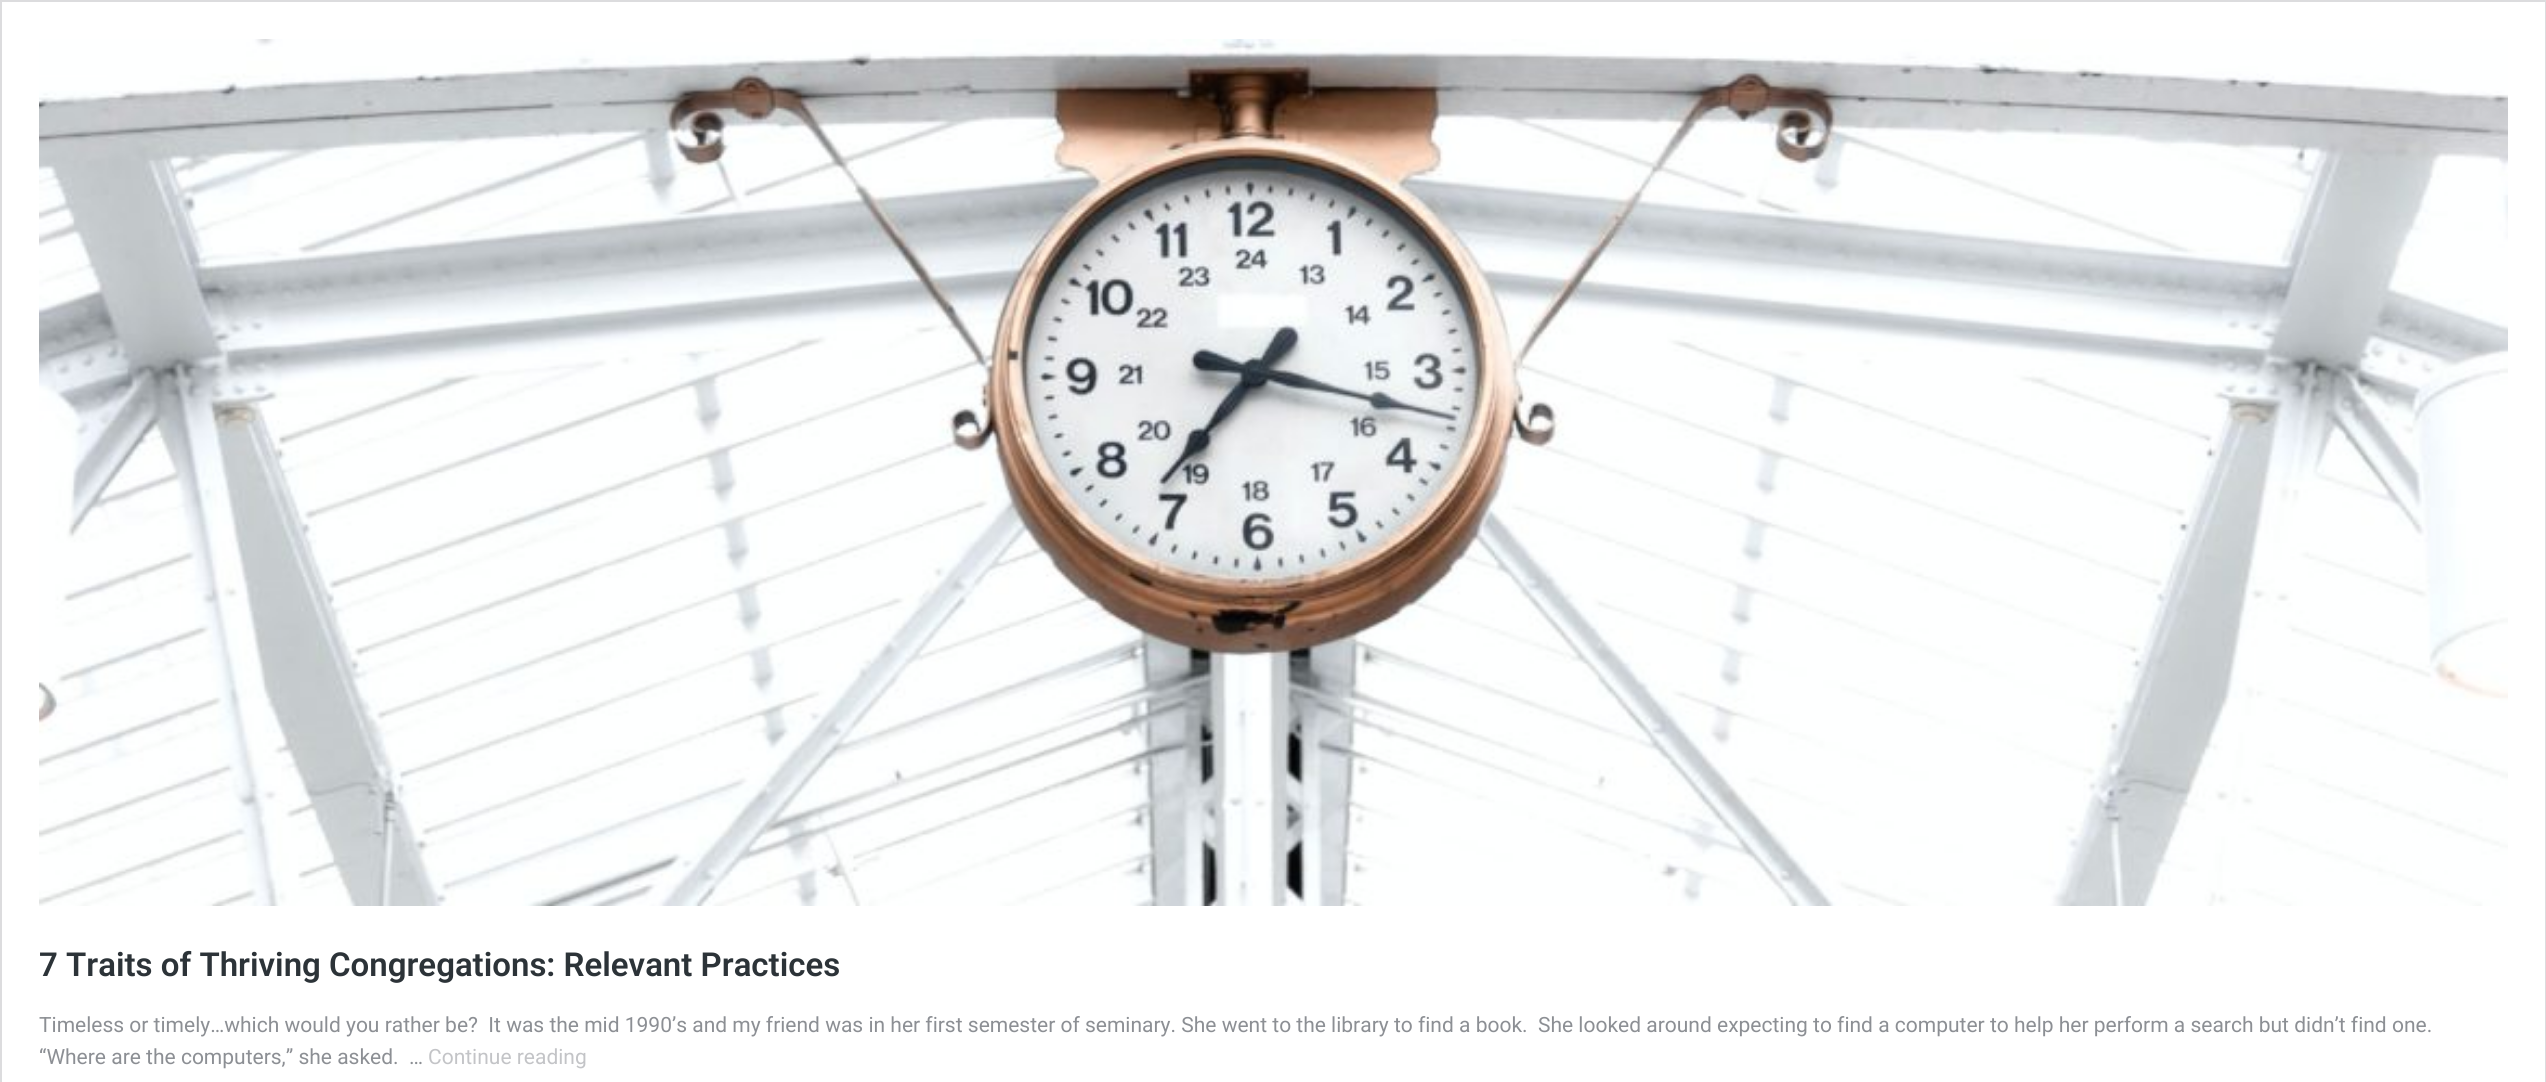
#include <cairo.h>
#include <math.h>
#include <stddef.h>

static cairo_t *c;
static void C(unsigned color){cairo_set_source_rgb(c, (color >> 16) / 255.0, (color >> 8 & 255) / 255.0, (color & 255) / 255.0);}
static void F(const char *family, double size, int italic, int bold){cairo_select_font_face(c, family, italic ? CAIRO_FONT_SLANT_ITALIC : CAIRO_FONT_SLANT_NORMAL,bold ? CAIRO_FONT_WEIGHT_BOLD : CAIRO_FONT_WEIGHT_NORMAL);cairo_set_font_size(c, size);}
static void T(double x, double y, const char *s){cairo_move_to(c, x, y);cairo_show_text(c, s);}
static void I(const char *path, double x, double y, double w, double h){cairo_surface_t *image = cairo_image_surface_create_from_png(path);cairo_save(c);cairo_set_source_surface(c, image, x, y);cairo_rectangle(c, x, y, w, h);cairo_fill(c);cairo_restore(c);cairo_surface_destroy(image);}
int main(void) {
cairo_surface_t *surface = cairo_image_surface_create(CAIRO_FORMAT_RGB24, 2546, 1082);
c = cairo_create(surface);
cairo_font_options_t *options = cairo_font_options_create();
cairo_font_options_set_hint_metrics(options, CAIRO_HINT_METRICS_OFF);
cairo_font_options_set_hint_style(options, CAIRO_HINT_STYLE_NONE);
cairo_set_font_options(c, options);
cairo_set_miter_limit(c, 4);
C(0xffffff);
cairo_paint(c);
cairo_rectangle(c,1,1,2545,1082);
C(0xdcdcde);
cairo_stroke(c);
I("1.png",39,39,2469,867);
F("Roboto SemiBold",33,0,0);
C(0x2c3338);
T(39,976,"7 Traits of Thriving Congregations: Relevant Practices");
F("Roboto",21,0,0);
C(0x8c8f94);
T(39,1032,"Timeless or timely…which would you rather be?  It was the mid 1990’s and my friend was in her first semester of seminary. She went to the library to find a book.  She looked around expecting to find a computer to help her perform a search but didn’t find one.");
T(39,1064,"“Where are the computers,” she asked.  …");
C(0xc3c4c7);
T(428,1064,"Continue reading");
cairo_surface_write_to_png(surface, "o.png");
cairo_font_options_destroy(options);
cairo_destroy(c);
cairo_surface_destroy(surface);
return 0;
}
